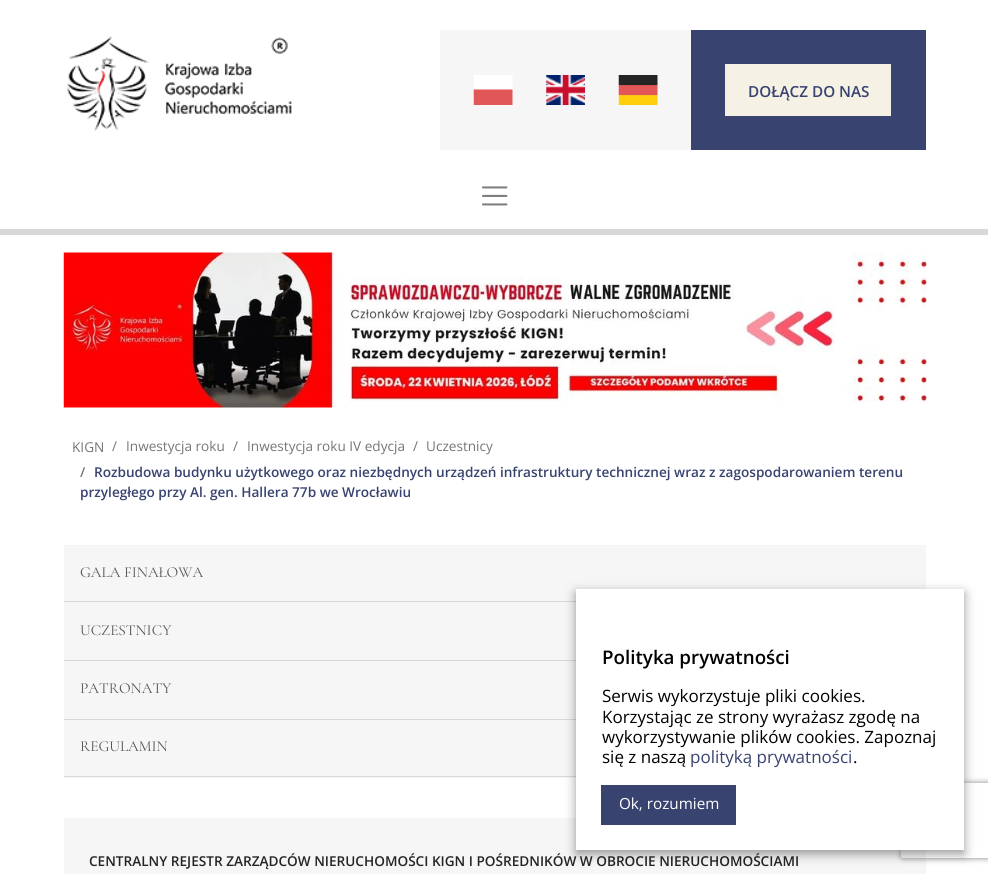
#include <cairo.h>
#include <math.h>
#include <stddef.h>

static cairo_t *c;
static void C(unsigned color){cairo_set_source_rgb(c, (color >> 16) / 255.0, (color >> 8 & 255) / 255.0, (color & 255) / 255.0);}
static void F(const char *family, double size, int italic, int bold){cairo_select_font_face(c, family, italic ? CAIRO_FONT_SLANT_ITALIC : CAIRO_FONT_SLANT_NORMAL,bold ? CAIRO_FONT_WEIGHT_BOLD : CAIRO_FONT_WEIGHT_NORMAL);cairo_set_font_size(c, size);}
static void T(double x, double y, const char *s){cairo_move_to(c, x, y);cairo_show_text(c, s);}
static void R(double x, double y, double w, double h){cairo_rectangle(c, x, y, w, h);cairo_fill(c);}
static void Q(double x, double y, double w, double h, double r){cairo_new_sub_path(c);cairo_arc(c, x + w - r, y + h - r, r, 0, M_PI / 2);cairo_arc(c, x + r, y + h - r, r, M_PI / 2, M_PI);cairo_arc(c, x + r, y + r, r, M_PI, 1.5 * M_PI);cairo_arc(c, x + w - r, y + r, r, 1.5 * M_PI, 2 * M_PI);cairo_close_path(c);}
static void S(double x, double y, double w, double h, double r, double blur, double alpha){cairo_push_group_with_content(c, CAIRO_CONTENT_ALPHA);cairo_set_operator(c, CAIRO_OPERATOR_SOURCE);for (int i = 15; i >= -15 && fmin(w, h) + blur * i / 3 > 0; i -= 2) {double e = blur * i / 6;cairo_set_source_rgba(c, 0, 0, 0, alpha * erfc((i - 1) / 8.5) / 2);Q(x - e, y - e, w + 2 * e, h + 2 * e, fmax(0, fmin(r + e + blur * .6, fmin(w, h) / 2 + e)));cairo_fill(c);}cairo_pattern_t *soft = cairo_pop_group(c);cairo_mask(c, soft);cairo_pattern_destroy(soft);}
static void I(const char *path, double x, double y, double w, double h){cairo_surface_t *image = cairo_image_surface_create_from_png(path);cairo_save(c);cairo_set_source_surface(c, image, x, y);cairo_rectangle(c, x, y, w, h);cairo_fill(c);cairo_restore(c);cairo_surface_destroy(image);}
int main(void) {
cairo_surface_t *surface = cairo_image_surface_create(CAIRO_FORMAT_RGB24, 988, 874);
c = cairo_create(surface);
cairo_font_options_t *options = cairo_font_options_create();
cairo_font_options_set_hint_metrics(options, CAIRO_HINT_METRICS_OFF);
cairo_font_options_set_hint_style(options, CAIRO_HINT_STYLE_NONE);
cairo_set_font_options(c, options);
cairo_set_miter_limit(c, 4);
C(0xffffff);
cairo_paint(c);
C(0xd8d8d8);
R(0,229,988,6);
I("1.png",67,36,225,95);
C(0xf6f6f6);
R(440,30,251,120);
I("2.png",473,75,40,30);
I("3.png",546,75,39,30);
I("4.png",618,75,40,30);
C(0x384370);
R(691,30,235,120);
C(0xf5f1e5);
R(725,64,166,52);
F("Open Sans SemiBold",15.25,0,0);
C(0x384370);
T(748,97,"DOŁĄCZ DO NAS");
I("5.png",482,186,26,20);
I("6.png",63,252,864,156);
F("Open Sans",13.6,0,0);
C(0x767676);
T(72,452,"KIGN");
C(0x6c757d);
T(112,451,"/");
C(0x767676);
T(126,451,"Inwestycja roku");
C(0x6c757d);
T(233,451,"/");
C(0x767676);
T(247,451,"Inwestycja roku IV edycja");
C(0x6c757d);
T(413,451,"/");
C(0x767676);
T(426,451,"Uczestnicy");
F("Open Sans SemiBold",13.6,0,0);
C(0x6c757d);
T(80,477,"/");
C(0x384370);
T(94,477,"Rozbudowa budynku użytkowego oraz niezbędnych urządzeń infrastruktury technicznej wraz z zagospodarowaniem terenu");
T(80,497,"przyległego przy Al. gen. Hallera 77b we Wrocławiu");
C(0xf6f6f6);
R(64,545,862,233);
C(0xd8d8d8);
R(64,601,512,1);
F("Cormorant Garamond",15.25,0,0);
C(0x545454);
T(80,577,"GALA FINAŁOWA");
C(0xd8d8d8);
R(64,660,512,1);
C(0x545454);
T(80,635,"UCZESTNICY");
C(0xd8d8d8);
R(64,719,512,1);
C(0x545454);
T(80,693,"PATRONATY");
C(0xd8d8d8);
R(64,776,512,1);
C(0x545454);
T(80,751,"REGULAMIN");
C(0xf6f6f6);
R(64,818,862,56);
F("Open Sans SemiBold",13.6,0,0);
C(0x242424);
T(89,866,"CENTRALNY REJESTR ZARZĄDCÓW NIERUCHOMOŚCI KIGN I POŚREDNIKÓW W OBROCIE NIERUCHOMOŚCIAMI");
C(0x000000);
S(576,593,388,261,0,5.5,.4);
cairo_save(c);
cairo_set_fill_rule(c,CAIRO_FILL_RULE_EVEN_ODD);
cairo_new_path(c);
cairo_move_to(c,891,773);
cairo_line_to(c,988,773);
cairo_line_to(c,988,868);
cairo_line_to(c,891,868);
cairo_close_path(c);
cairo_move_to(c,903.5,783);
cairo_line_to(c,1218.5,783);
cairo_curve_to(c,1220,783,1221,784,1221,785.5);
cairo_line_to(c,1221,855.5);
cairo_curve_to(c,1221,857,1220,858,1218.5,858);
cairo_line_to(c,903.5,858);
cairo_curve_to(c,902,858,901,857,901,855.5);
cairo_line_to(c,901,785.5);
cairo_curve_to(c,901,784,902,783,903.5,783);
cairo_close_path(c);
cairo_clip(c);
C(0x808080);
S(901,783,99,75,2.5,3,1);
cairo_restore(c);
C(0xffffff);
R(576,589,388,261);
F("Open Sans SemiBold",18.75,0,0);
C(0x000000);
T(602,664,"Polityka prywatności");
F("Open Sans",17,0,0);
T(602,702,"Serwis wykorzystuje pliki cookies.");
T(602,723,"Korzystając ze strony wyrażasz zgodę na");
T(602,743,"wykorzystywanie plików cookies. Zapoznaj");
T(602,763,"się z naszą");
C(0x384370);
T(690,763,"polityką prywatności");
C(0x000000);
T(853,763,".");
C(0x384370);
R(601,785,135,40);
F("Open Sans",15.25,0,0);
C(0xffffff);
T(619,809,"Ok, rozumiem");
cairo_surface_write_to_png(surface, "o.png");
cairo_font_options_destroy(options);
cairo_destroy(c);
cairo_surface_destroy(surface);
return 0;
}
